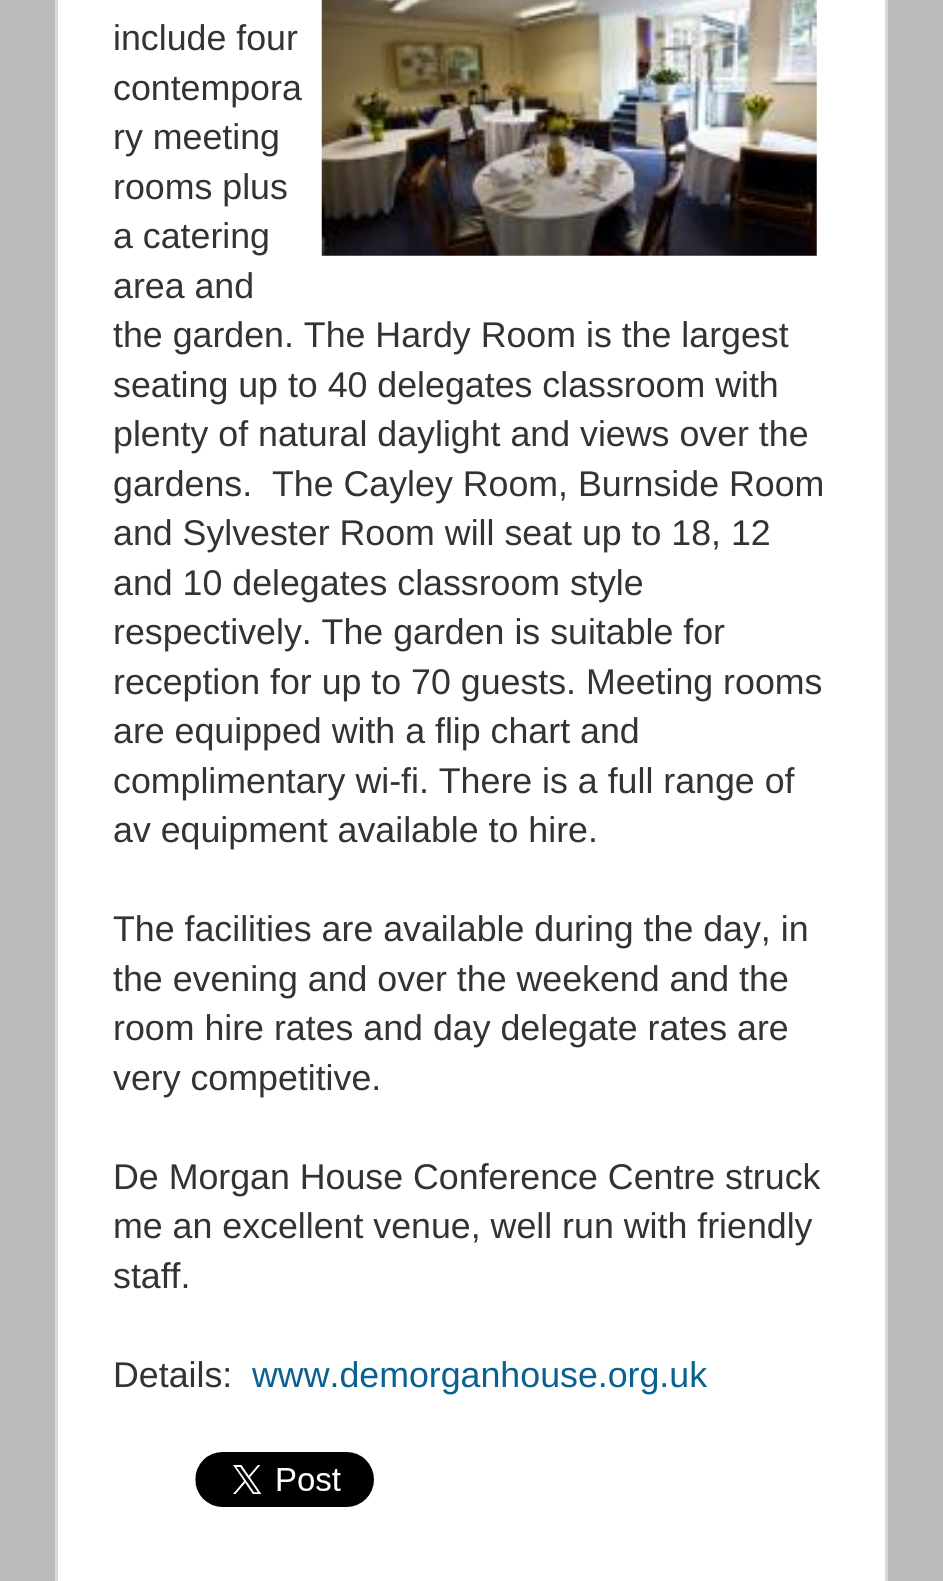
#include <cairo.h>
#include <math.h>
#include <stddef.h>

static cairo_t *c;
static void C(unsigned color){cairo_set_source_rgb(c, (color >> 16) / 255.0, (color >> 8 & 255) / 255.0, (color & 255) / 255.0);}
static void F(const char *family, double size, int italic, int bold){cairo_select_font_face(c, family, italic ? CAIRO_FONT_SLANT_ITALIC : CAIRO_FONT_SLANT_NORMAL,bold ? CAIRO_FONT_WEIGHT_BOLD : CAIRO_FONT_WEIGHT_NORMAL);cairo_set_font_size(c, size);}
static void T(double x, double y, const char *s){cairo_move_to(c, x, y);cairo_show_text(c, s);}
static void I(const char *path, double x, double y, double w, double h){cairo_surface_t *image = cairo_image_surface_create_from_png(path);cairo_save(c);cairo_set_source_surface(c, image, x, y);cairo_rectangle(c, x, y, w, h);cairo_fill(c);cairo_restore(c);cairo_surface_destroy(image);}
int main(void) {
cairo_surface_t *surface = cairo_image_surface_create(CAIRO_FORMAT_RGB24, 943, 1581);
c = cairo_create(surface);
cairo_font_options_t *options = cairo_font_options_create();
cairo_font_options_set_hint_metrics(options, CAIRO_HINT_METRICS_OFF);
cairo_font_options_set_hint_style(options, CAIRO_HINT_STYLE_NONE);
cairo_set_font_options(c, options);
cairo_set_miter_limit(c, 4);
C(0xbababa);
cairo_paint(c);
C(0xffffff);
cairo_rectangle(c,56.5,-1.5,830,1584);
cairo_fill_preserve(c);
C(0xd9d9d9);
cairo_set_line_width(c,3);
cairo_stroke(c);
F("Liberation Sans",35.75,0,0);
C(0x333333);
T(113,50,"include four");
I("1.png",321,0,496,256);
T(113,100,"contempora");
T(113,149,"ry meeting");
T(113,199,"rooms plus");
T(113,248,"a catering");
T(113,298,"area and");
T(113,347,"the garden. The Hardy Room is the largest");
T(113,397,"seating up to 40 delegates classroom with");
T(113,446,"plenty of natural daylight and views over the");
T(113,496,"gardens.  The Cayley Room, Burnside Room");
T(113,545,"and Sylvester Room will seat up to 18, 12");
T(113,595,"and 10 delegates classroom style");
T(113,644,"respectively. The garden is suitable for");
T(113,694,"reception for up to 70 guests. Meeting rooms");
T(113,743,"are equipped with a flip chart and");
T(113,793,"complimentary wi-fi. There is a full range of");
T(113,842,"av equipment available to hire.");
T(113,941,"The facilities are available during the day, in");
T(113,991,"the evening and over the weekend and the");
T(113,1040,"room hire rates and day delegate rates are");
T(113,1090,"very competitive.");
T(113,1189,"De Morgan House Conference Centre struck");
T(113,1238,"me an excellent venue, well run with friendly");
T(113,1288,"staff.");
T(113,1387,"Details:");
C(0x096191);
T(252,1387,"www.demorganhouse.org.uk");
I("2.png",195,1452,179,55);
cairo_surface_write_to_png(surface, "o.png");
cairo_font_options_destroy(options);
cairo_destroy(c);
cairo_surface_destroy(surface);
return 0;
}
